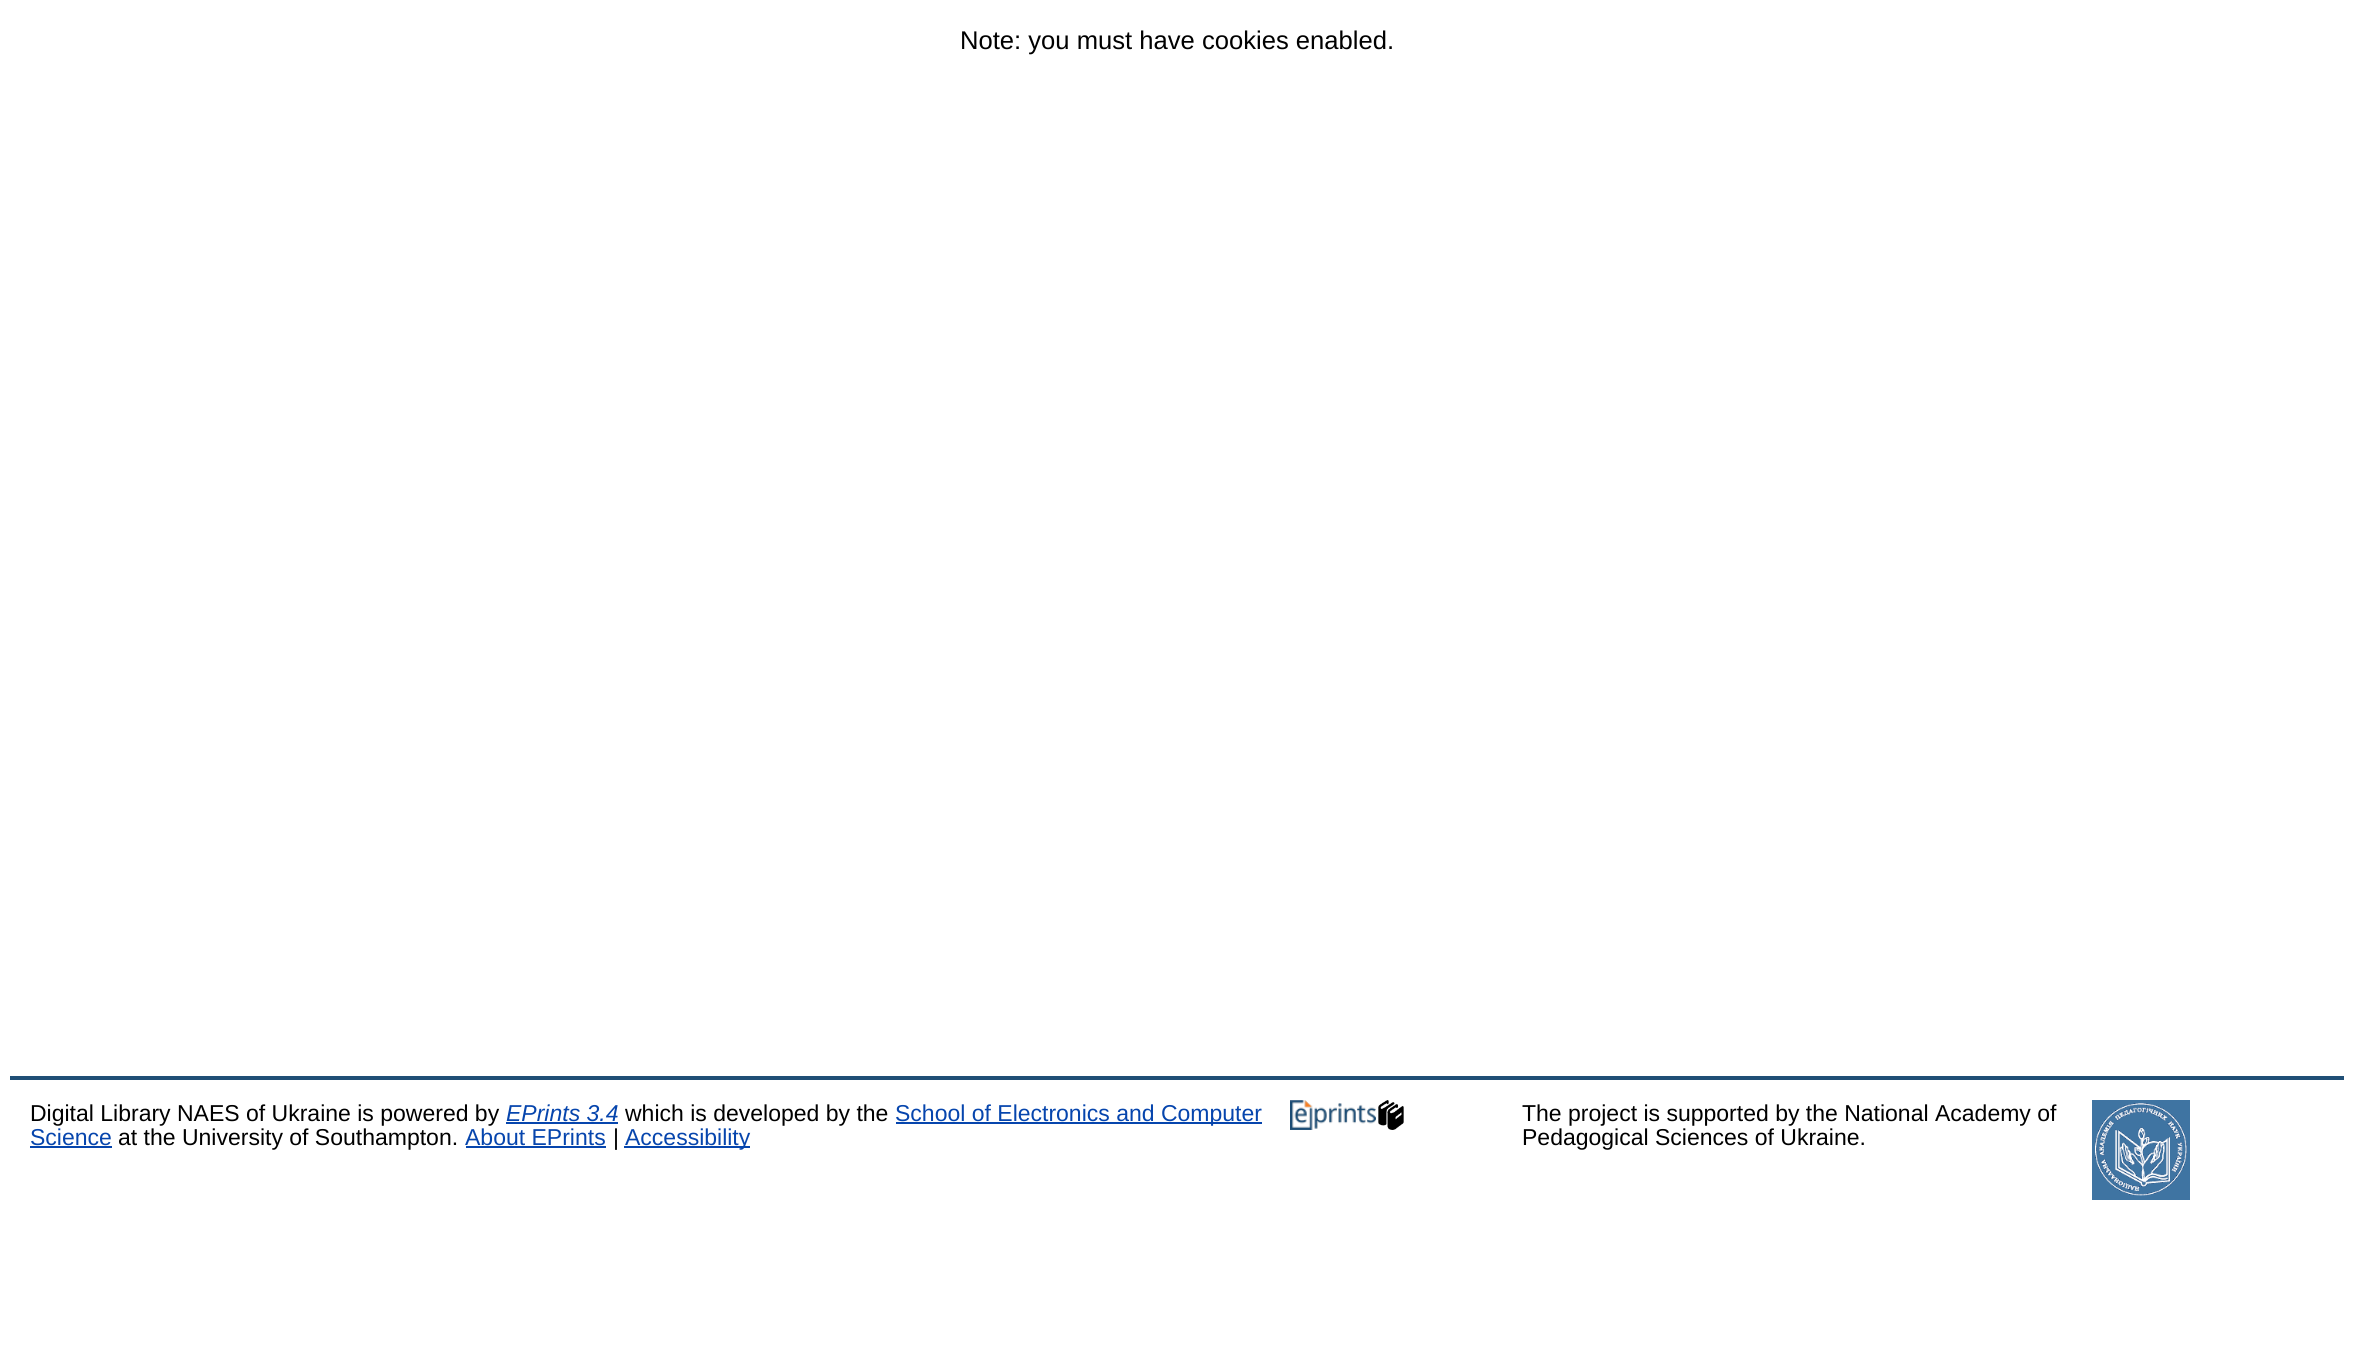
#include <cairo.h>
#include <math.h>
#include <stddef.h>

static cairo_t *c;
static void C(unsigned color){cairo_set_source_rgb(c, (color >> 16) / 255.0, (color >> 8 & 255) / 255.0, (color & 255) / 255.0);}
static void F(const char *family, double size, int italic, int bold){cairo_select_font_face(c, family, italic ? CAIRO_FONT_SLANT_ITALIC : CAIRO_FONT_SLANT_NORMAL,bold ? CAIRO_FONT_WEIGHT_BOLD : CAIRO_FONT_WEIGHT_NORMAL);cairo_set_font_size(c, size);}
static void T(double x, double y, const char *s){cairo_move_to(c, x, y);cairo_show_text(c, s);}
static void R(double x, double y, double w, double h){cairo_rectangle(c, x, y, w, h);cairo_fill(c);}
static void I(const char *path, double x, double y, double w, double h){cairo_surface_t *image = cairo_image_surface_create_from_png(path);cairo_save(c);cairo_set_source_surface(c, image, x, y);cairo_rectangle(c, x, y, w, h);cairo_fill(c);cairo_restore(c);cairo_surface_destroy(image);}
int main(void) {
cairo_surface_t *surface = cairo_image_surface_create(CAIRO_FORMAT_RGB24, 2354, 1370);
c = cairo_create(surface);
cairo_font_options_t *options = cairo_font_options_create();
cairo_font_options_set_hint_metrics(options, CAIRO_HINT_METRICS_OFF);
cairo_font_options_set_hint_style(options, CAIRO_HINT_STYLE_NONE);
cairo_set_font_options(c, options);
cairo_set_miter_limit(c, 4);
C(0xffffff);
cairo_paint(c);
F("Liberation Sans",25.6,0,0);
C(0x000000);
T(960,49,"Note: you must have cookies enabled.");
C(0x204f76);
R(10,1076,2334,4);
F("Liberation Sans",23,0,0);
C(0x000000);
T(30,1121,"Digital Library NAES of Ukraine is powered by");
F("Liberation Sans",23,1,0);
C(0x0645ad);
T(506,1121,"EPrints 3.4");
R(506,1122,112,2);
F("Liberation Sans",23,0,0);
C(0x000000);
T(625,1121,"which is developed by the");
C(0x0645ad);
R(896,1122,366,2);
T(895,1121,"School of Electronics and Computer");
T(30,1145,"Science");
R(30,1146,82,2);
C(0x000000);
T(118,1145,"at the University of Southampton.");
C(0x0645ad);
T(465,1145,"About EPrints");
R(466,1146,140,2);
C(0x000000);
T(613,1145,"|");
C(0x0645ad);
R(624,1146,126,2);
T(625,1145,"Accessibility");
I("1.png",1290,1100,86,30);
I("2.png",1378,1100,26,30);
C(0x000000);
T(1522,1121,"The project is supported by the National Academy of");
T(1522,1145,"Pedagogical Sciences of Ukraine.");
C(0x3f74a2);
R(2092,1100,98,100);
I("3.png",2095,1103,92,93);
cairo_surface_write_to_png(surface, "o.png");
cairo_font_options_destroy(options);
cairo_destroy(c);
cairo_surface_destroy(surface);
return 0;
}
